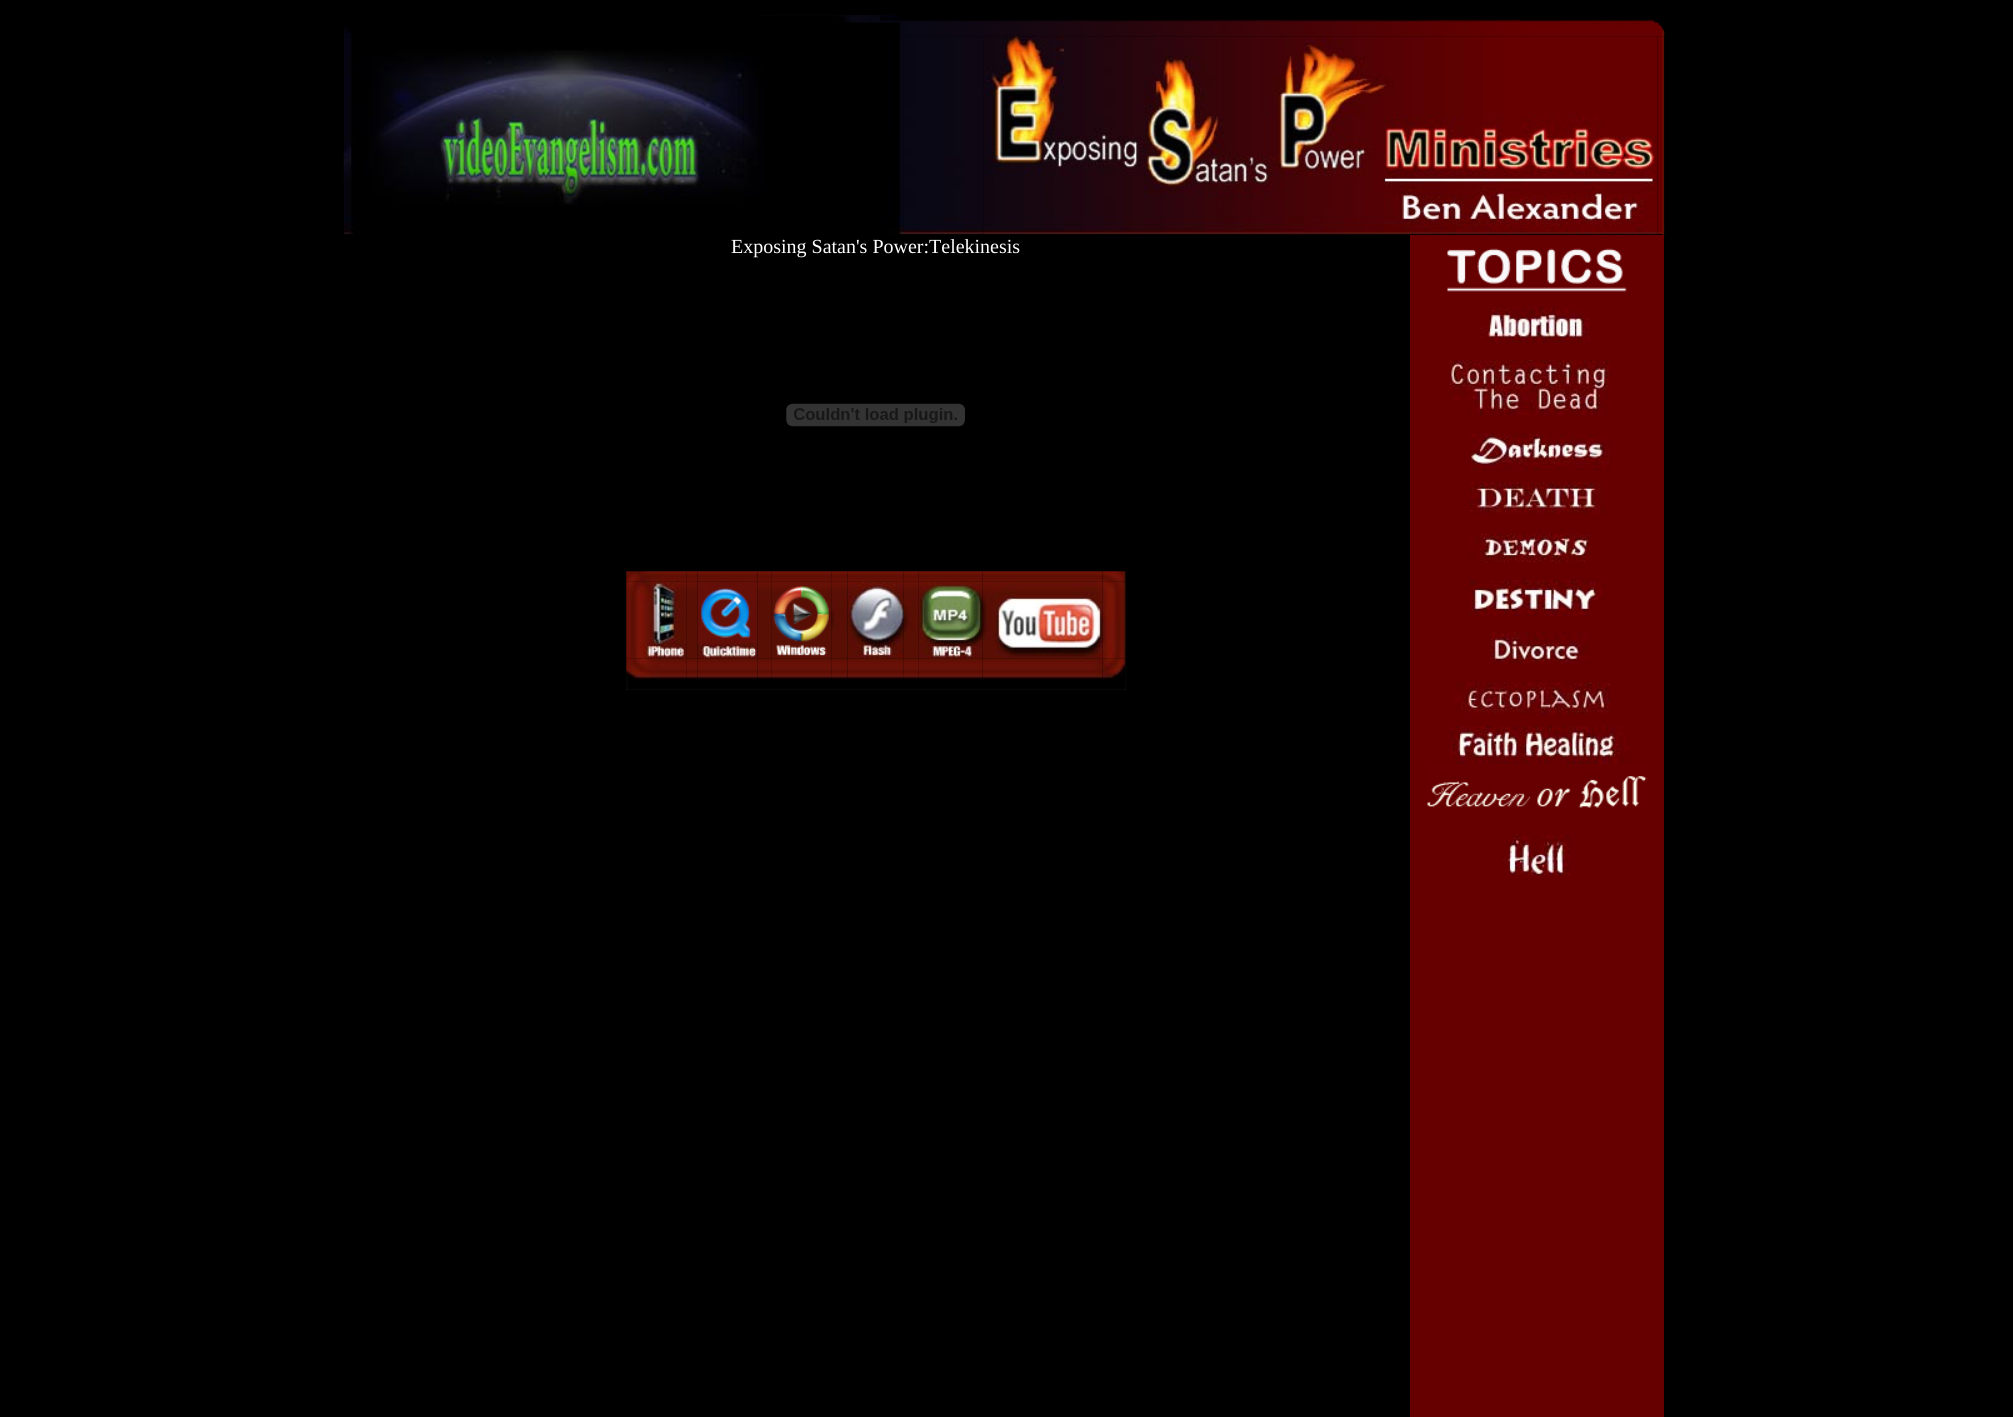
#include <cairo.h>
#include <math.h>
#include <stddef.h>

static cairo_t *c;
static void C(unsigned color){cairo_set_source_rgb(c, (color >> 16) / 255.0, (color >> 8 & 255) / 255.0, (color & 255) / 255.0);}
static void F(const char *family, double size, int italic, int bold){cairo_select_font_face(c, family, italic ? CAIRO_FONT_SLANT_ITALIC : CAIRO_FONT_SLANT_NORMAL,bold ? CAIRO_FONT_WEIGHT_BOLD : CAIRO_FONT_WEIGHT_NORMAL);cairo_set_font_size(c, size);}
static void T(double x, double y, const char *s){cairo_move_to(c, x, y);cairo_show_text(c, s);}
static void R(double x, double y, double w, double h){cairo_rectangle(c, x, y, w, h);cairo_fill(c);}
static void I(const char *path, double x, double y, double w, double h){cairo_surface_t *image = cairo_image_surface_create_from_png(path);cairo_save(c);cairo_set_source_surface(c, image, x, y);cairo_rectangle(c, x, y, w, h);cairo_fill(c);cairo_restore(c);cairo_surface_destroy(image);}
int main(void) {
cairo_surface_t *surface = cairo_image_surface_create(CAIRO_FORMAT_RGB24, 2013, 1417);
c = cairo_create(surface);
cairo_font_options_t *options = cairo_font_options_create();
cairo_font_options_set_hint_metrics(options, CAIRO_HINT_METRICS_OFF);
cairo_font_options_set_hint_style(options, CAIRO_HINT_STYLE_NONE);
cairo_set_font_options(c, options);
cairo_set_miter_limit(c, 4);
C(0x000000);
cairo_paint(c);
I("1.png",343,15,1323,22);
I("2.png",343,36,401,199);
I("3.png",744,36,240,199);
I("4.png",983,36,675,199);
I("5.png",1657,36,8,199);
F("Liberation Serif",20,0,0);
C(0xffffff);
T(731,253,"Exposing Satan's Power:Telekinesis");
I("6.png",786,403,179,24);
I("7.png",626,571,14,11);
I("8.png",640,571,47,11);
I("9.png",686,571,12,11);
I("10.png",697,571,61,11);
I("11.png",757,571,15,11);
I("12.png",771,571,61,11);
I("13.png",831,571,17,11);
I("14.png",847,571,57,11);
I("15.png",903,571,16,11);
I("16.png",918,571,65,11);
I("17.png",982,571,13,11);
I("18.png",995,571,108,11);
I("19.png",1102,571,25,11);
I("20.png",626,581,14,78);
I("21.png",640,581,47,78);
I("22.png",686,581,12,78);
I("23.png",697,581,61,78);
I("24.png",757,581,15,78);
I("25.png",771,581,61,78);
I("26.png",831,581,17,78);
I("27.png",847,581,57,78);
I("28.png",903,581,16,78);
I("29.png",918,581,65,78);
I("30.png",982,581,13,78);
I("31.png",995,581,108,78);
I("32.png",1102,581,25,78);
I("33.png",626,658,14,32);
I("34.png",640,658,47,32);
I("35.png",686,658,12,32);
I("36.png",697,658,61,32);
I("37.png",757,658,15,32);
I("38.png",771,658,61,32);
I("39.png",831,658,17,32);
I("40.png",847,658,57,32);
I("41.png",903,658,16,32);
I("42.png",918,658,65,32);
I("43.png",982,658,13,32);
I("44.png",995,658,108,32);
I("45.png",1102,658,25,32);
C(0x660000);
R(1410,235,254,1182);
I("46.png",1447,248,180,44);
I("47.png",1480,307,110,36);
cairo_set_source_rgba(c,0.4,0,0,0.5);
R(1513,342,68,1);
I("48.png",1449,360,161,55);
I("49.png",1470,434,140,36);
I("50.png",1470,482,136,32);
I("51.png",1470,533,121,30);
R(1486,562,49,1);
I("52.png",1469,580,137,36);
I("53.png",1490,632,99,32);
I("54.png",1453,682,158,34);
I("55.png",1449,726,181,38);
I("56.png",1427,763,220,45);
I("57.png",1502,835,68,41);
cairo_surface_write_to_png(surface, "o.png");
cairo_font_options_destroy(options);
cairo_destroy(c);
cairo_surface_destroy(surface);
return 0;
}
